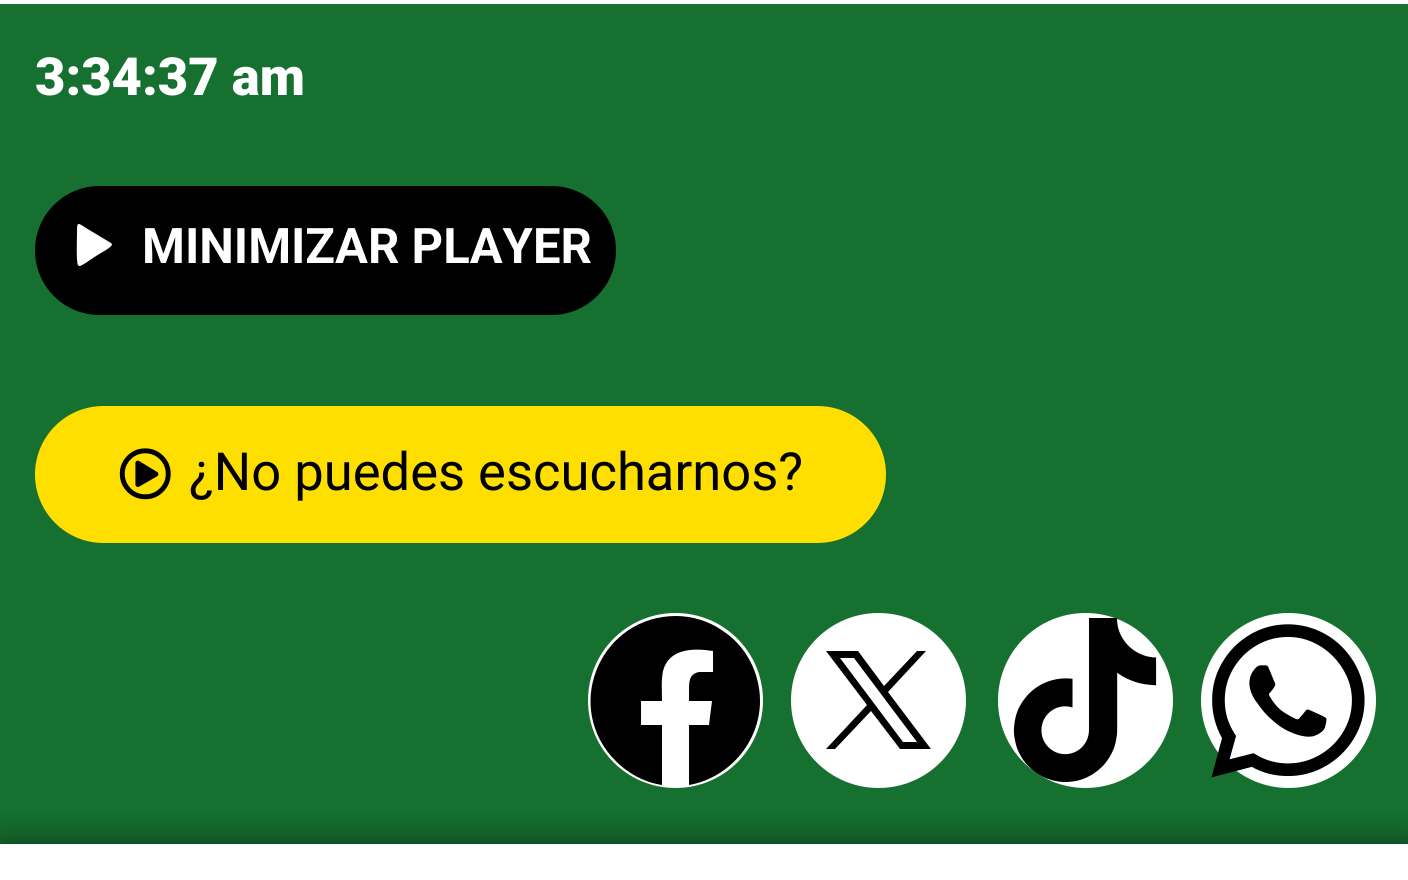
#include <cairo.h>
#include <math.h>
#include <stddef.h>

static cairo_t *c;
static void C(unsigned color){cairo_set_source_rgb(c, (color >> 16) / 255.0, (color >> 8 & 255) / 255.0, (color & 255) / 255.0);}
static void F(const char *family, double size, int italic, int bold){cairo_select_font_face(c, family, italic ? CAIRO_FONT_SLANT_ITALIC : CAIRO_FONT_SLANT_NORMAL,bold ? CAIRO_FONT_WEIGHT_BOLD : CAIRO_FONT_WEIGHT_NORMAL);cairo_set_font_size(c, size);}
static void T(double x, double y, const char *s){cairo_move_to(c, x, y);cairo_show_text(c, s);}
static void R(double x, double y, double w, double h){cairo_rectangle(c, x, y, w, h);cairo_fill(c);}
static void Q(double x, double y, double w, double h, double r){cairo_new_sub_path(c);cairo_arc(c, x + w - r, y + h - r, r, 0, M_PI / 2);cairo_arc(c, x + r, y + h - r, r, M_PI / 2, M_PI);cairo_arc(c, x + r, y + r, r, M_PI, 1.5 * M_PI);cairo_arc(c, x + w - r, y + r, r, 1.5 * M_PI, 2 * M_PI);cairo_close_path(c);}
static void S(double x, double y, double w, double h, double r, double blur, double alpha){cairo_push_group_with_content(c, CAIRO_CONTENT_ALPHA);cairo_set_operator(c, CAIRO_OPERATOR_SOURCE);for (int i = 15; i >= -15 && fmin(w, h) + blur * i / 3 > 0; i -= 2) {double e = blur * i / 6;cairo_set_source_rgba(c, 0, 0, 0, alpha * erfc((i - 1) / 8.5) / 2);Q(x - e, y - e, w + 2 * e, h + 2 * e, fmax(0, fmin(r + e + blur * .6, fmin(w, h) / 2 + e)));cairo_fill(c);}cairo_pattern_t *soft = cairo_pop_group(c);cairo_mask(c, soft);cairo_pattern_destroy(soft);}
static void I(const char *path, double x, double y, double w, double h){cairo_surface_t *image = cairo_image_surface_create_from_png(path);cairo_save(c);cairo_set_source_surface(c, image, x, y);cairo_rectangle(c, x, y, w, h);cairo_fill(c);cairo_restore(c);cairo_surface_destroy(image);}
int main(void) {
cairo_surface_t *surface = cairo_image_surface_create(CAIRO_FORMAT_RGB24, 1408, 880);
c = cairo_create(surface);
cairo_font_options_t *options = cairo_font_options_create();
cairo_font_options_set_hint_metrics(options, CAIRO_HINT_METRICS_OFF);
cairo_font_options_set_hint_style(options, CAIRO_HINT_STYLE_NONE);
cairo_set_font_options(c, options);
cairo_set_miter_limit(c, 4);
C(0xffffff);
cairo_paint(c);
C(0x16702f);
R(0,4,1408,840);
F("Roboto Black",52.5,0,0);
C(0xffffff);
T(35,95,"3:34:37 am");
C(0x000000);
Q(35,186,581,129,64.5);
cairo_fill(c);
F("Roboto",49,0,1);
C(0xffffff);
T(142,263,"MINIMIZAR PLAYER");
cairo_new_path(c);
cairo_move_to(c,111,243);
cairo_line_to(c,86,228);
cairo_curve_to(c,77,222,77,222,77,233);
cairo_curve_to(c,77,237,76,263,78,265);
cairo_line_to(c,79,266);
cairo_curve_to(c,81,267,94,257,96,256);
cairo_line_to(c,106,250);
cairo_curve_to(c,109,248,114,245,111,243);
cairo_close_path(c);
cairo_fill(c);
C(0xffdf00);
Q(35,406,851,137,68.5);
cairo_fill(c);
I("1.png",119,448,52,52);
F("Roboto",52.5,0,0);
C(0x000000);
T(189,490,"¿No puedes escucharnos?");
C(0xffffff);
cairo_new_path(c);
cairo_arc(c,675.5,700.5,87.5,0,2 * M_PI);
cairo_fill(c);
C(0x000000);
cairo_new_path(c);
cairo_move_to(c,760,701);
cairo_curve_to(c,760,742,729,778,689,785);
cairo_line_to(c,689,725);
cairo_line_to(c,709,725);
cairo_line_to(c,712,701);
cairo_line_to(c,689,701);
cairo_line_to(c,689,690);
cairo_curve_to(c,689,682,689,674,699,672);
cairo_line_to(c,713,672);
cairo_line_to(c,713,651);
cairo_curve_to(c,694,648,669,648,663,671);
cairo_curve_to(c,661,681,662,691,662,701);
cairo_line_to(c,641,701);
cairo_line_to(c,641,725);
cairo_line_to(c,662,725);
cairo_line_to(c,662,785);
cairo_curve_to(c,642,782,624,771,611,756);
cairo_curve_to(c,564,701,603,616,676,616);
cairo_curve_to(c,692,616,709,621,723,631);
cairo_curve_to(c,746,646,760,673,760,701);
cairo_close_path(c);
cairo_fill(c);
C(0xffffff);
cairo_arc(c,878.5,700.5,87.5,0,2 * M_PI);
cairo_fill(c);
C(0x000000);
cairo_new_path(c);
cairo_move_to(c,826,651);
cairo_line_to(c,867,705);
cairo_line_to(c,826,749);
cairo_line_to(c,835,749);
cairo_line_to(c,871,711);
cairo_line_to(c,900,749);
cairo_line_to(c,931,749);
cairo_line_to(c,888,692);
cairo_line_to(c,926,651);
cairo_line_to(c,917,651);
cairo_line_to(c,884,686);
cairo_line_to(c,858,651);
cairo_close_path(c);
cairo_move_to(c,840,658);
cairo_line_to(c,854,658);
cairo_line_to(c,917,742);
cairo_line_to(c,903,742);
cairo_close_path(c);
cairo_fill(c);
C(0xffffff);
cairo_arc(c,1085.5,700.5,87.5,0,2 * M_PI);
cairo_fill(c);
I("2.png",1013,618,144,164);
cairo_arc(c,1288.5,700.5,87.5,0,2 * M_PI);
cairo_fill(c);
I("3.png",1211,624,154,154);
cairo_save(c);
cairo_rectangle(c,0,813,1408,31);
cairo_clip(c);
C(0x000000);
S(0,844,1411,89,0,17.5,.5);
cairo_restore(c);
cairo_surface_write_to_png(surface, "o.png");
cairo_font_options_destroy(options);
cairo_destroy(c);
cairo_surface_destroy(surface);
return 0;
}
